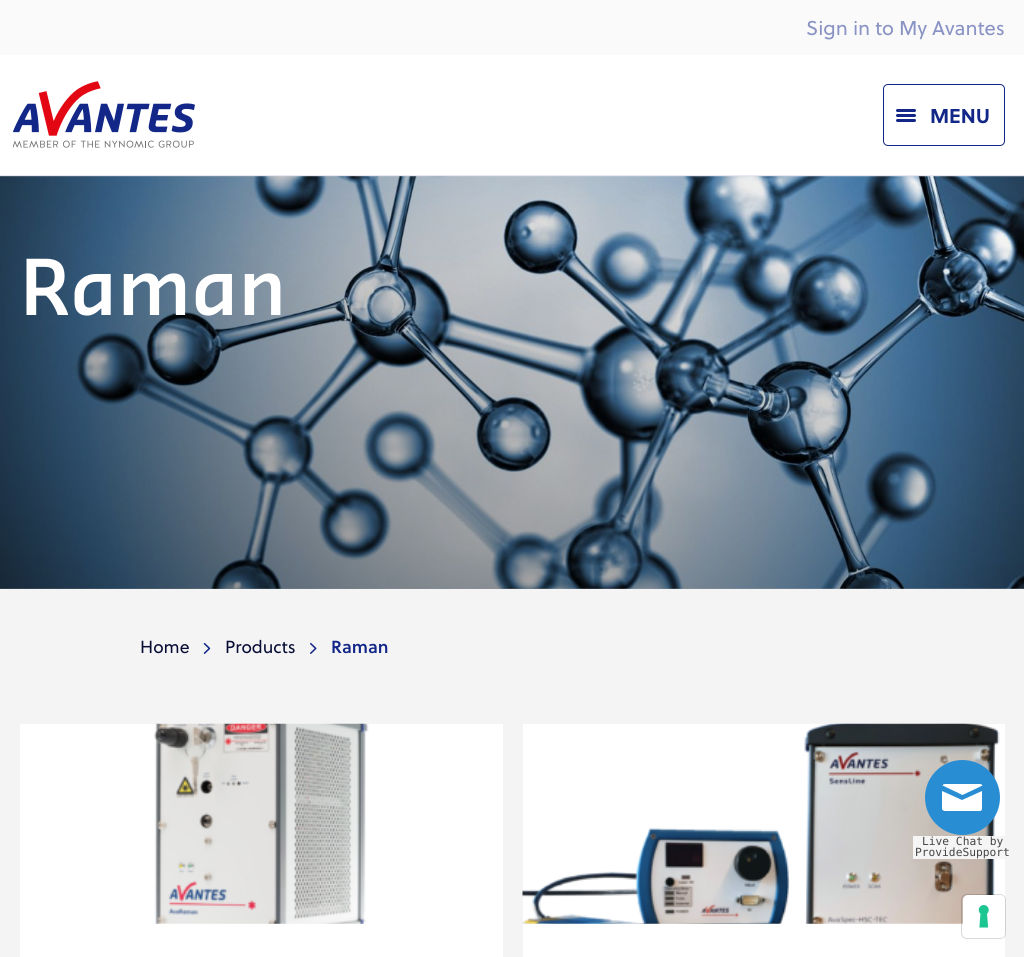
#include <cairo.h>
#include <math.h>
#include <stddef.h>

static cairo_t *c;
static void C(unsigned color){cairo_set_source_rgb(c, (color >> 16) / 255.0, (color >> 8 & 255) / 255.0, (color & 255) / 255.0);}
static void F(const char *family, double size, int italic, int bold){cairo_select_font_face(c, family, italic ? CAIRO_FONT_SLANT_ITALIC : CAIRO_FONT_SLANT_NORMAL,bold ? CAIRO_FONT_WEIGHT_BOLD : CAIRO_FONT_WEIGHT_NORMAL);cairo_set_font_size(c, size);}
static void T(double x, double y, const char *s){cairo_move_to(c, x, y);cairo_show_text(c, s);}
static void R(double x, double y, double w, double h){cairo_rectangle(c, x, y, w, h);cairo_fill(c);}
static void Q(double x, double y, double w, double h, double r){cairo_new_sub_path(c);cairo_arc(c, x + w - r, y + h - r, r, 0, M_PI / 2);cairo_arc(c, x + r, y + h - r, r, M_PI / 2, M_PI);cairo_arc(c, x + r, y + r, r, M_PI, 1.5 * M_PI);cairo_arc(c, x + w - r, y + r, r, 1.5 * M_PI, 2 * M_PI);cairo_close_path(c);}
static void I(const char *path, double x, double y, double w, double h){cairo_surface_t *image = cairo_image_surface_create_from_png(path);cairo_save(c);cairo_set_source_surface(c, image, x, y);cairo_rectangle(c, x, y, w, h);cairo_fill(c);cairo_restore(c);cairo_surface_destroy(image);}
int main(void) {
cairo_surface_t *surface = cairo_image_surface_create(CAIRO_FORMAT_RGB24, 1024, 957);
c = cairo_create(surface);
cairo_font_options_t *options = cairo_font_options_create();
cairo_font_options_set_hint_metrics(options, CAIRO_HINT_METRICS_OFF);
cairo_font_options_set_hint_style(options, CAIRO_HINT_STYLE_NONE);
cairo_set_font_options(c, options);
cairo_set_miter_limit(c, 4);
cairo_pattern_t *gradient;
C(0xffffff);
cairo_paint(c);
C(0xfafafa);
R(0,0,1024,55);
F("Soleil",20,0,0);
C(0x8993c4);
T(806,35,"Sign in to My Avantes");
C(0xe7e9f3);
R(0,175,1024,1);
I("1.png",13,81,182,67);
Q(883.5,84.5,121,61,4.5);
C(0x122788);
cairo_set_line_width(c,1);
cairo_stroke(c);
Q(896,114,20,3,1.5);
cairo_fill(c);
Q(896,109,20,3,1.5);
cairo_fill(c);
Q(896,119,20,3,1.5);
cairo_fill(c);
F("Soleil",20,0,1);
T(930,123,"MENU");
C(0xf4f4f4);
R(0,176,1024,781);
I("2.png",0,176,1024,413);
gradient = cairo_pattern_create_linear(370,738,655,27);
cairo_pattern_add_color_stop_rgba(gradient,0,0,0,0,.5);
cairo_pattern_add_color_stop_rgba(gradient,1,0,0,0,0);
cairo_set_source(c,gradient);
cairo_pattern_destroy(gradient);
R(0,176,1024,413);
F("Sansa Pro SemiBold",75,0,0);
C(0xffffff);
T(20,315,"Raman");
F("Soleil",17.5,0,0);
C(0x070d34);
T(140,653,"Home");
I("3.png",203,643,8,11);
T(225,653,"Products");
I("4.png",310,643,7,11);
F("Soleil SemiBold",17.5,0,0);
C(0x122788);
T(331,653,"Raman");
C(0xffffff);
R(20,724,483,233);
I("5.png",154,723,215,201);
R(523,724,482,233);
I("6.png",522,723,478,201);
C(0x298dd3);
cairo_arc(c,962.5,797.5,37.5,0,2 * M_PI);
cairo_fill(c);
C(0xffffff);
cairo_new_path(c);
cairo_move_to(c,942.5,785.5);
cairo_line_to(c,962.5,795);
cairo_line_to(c,982.5,785.5);
cairo_curve_to(c,982,784.5,981,784,980,784);
cairo_line_to(c,945,784);
cairo_curve_to(c,944,784,943,784.5,942.5,785.5);
cairo_close_path(c);
cairo_fill(c);
cairo_new_path(c);
cairo_move_to(c,982,791);
cairo_line_to(c,962,800);
cairo_line_to(c,942,791);
cairo_line_to(c,942,809);
cairo_curve_to(c,942,810,944,811,945,811);
cairo_line_to(c,980,811);
cairo_curve_to(c,981,811,982,810,982,809);
cairo_close_path(c);
cairo_fill(c);
C(0xf5f5f5);
R(913,836,92,23);
F("DejaVu Sans Mono",11.25,0,0);
C(0x444444);
T(922,845,"Live Chat by");
T(915,856,"ProvideSupport");
Q(961.5,894.5,44,44,5.5);
cairo_set_source_rgba(c,0,0,0,0.15);
cairo_stroke(c);
C(0xffffff);
Q(963,895,42,43,5);
cairo_fill(c);
I("7.png",978,905,11,23);
cairo_surface_write_to_png(surface, "o.png");
cairo_font_options_destroy(options);
cairo_destroy(c);
cairo_surface_destroy(surface);
return 0;
}
